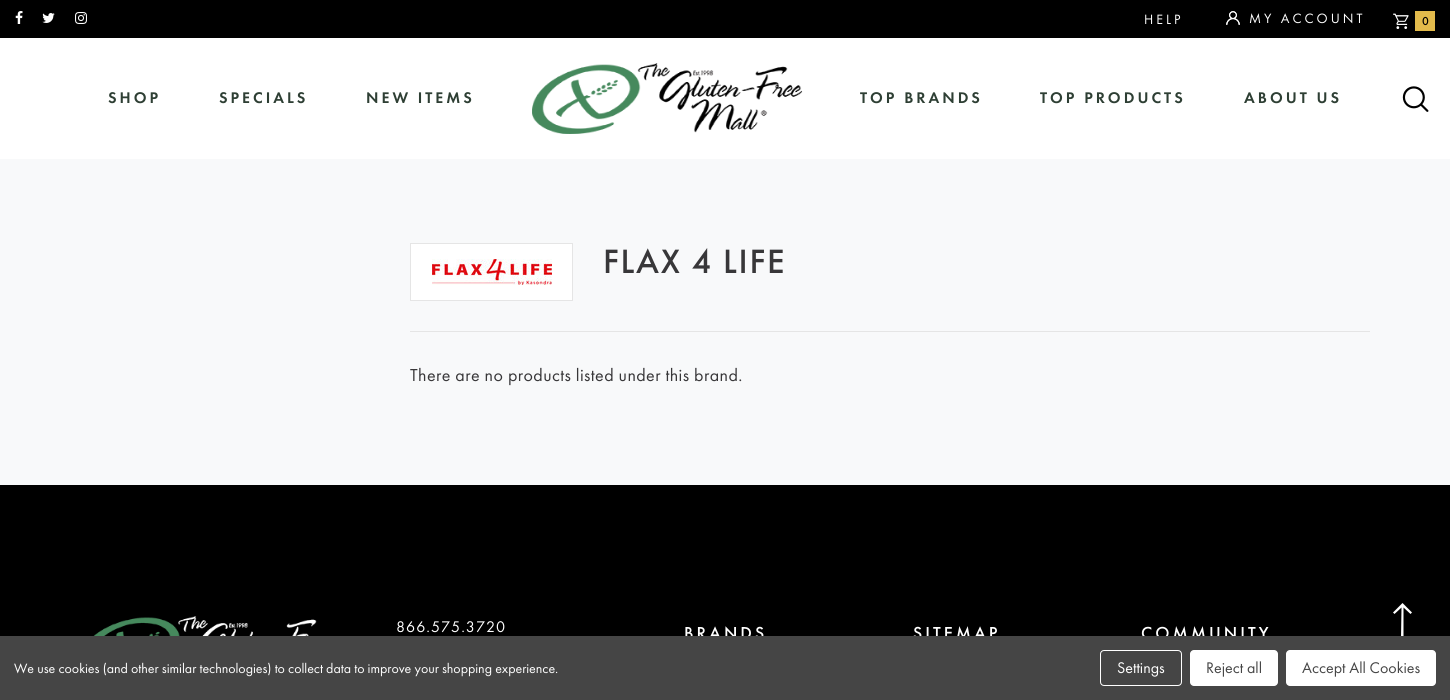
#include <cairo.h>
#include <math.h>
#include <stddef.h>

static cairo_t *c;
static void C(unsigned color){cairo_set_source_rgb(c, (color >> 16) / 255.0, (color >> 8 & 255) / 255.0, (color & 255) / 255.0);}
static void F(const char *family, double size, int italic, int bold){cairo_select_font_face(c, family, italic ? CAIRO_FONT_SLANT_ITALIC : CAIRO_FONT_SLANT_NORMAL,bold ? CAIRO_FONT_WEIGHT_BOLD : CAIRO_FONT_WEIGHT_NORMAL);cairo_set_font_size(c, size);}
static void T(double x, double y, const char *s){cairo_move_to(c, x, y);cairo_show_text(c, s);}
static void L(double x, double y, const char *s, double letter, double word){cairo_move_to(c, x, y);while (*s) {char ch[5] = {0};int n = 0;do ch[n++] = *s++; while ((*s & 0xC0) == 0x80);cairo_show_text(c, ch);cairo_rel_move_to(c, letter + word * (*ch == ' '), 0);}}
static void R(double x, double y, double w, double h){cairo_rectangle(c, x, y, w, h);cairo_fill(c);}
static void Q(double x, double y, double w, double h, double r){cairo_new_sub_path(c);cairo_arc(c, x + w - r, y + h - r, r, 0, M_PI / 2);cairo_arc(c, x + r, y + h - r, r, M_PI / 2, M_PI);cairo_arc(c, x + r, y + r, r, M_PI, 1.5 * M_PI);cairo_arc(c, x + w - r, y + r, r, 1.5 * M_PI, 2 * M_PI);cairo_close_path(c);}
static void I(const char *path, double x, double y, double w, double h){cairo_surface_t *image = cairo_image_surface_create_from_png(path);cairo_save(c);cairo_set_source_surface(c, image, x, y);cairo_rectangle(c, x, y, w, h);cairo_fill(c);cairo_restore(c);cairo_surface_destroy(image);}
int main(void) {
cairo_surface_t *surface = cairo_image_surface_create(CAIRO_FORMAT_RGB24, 1450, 700);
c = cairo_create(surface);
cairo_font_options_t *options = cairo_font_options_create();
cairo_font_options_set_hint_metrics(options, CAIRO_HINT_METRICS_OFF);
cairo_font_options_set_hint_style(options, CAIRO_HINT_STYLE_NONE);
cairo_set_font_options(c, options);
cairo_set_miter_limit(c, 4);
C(0xf8f9fa);
cairo_paint(c);
C(0xffffff);
R(0,38,1450,121);
C(0x000000);
R(0,0,1450,38);
I("1.png",15,11,8,13);
I("2.png",42,13,13,10);
I("3.png",75,12,12,12);
F("Futura PT",14,0,0);
C(0xffffff);
L(1144,24,"HELP",3,0);
I("4.png",1226,11,14,14);
L(1249,23,"MY ACCOUNT",3,0);
I("5.png",1393,13,16,16);
C(0xe2ba4b);
R(1415,11,20,20);
F("Futura PT Medium",12,0,0);
C(0x000000);
T(1422,25,"0");
F("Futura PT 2 Medium",16,0,0);
C(0x2e3f34);
L(108,103,"SHOP",3,0);
L(219,103,"SPECIALS",3,0);
L(366,103,"NEW ITEMS",3,0);
I("6.png",532,63,271,71);
L(860,103,"TOP BRANDS",3,0);
L(1040,103,"TOP PRODUCTS",3,0);
L(1244,103,"ABOUT US",3,0);
I("7.png",1402,86,27,26);
C(0xe5e5e5);
R(410,331,960,1);
C(0xffffff);
cairo_rectangle(c,410.5,243.5,162,57);
cairo_fill_preserve(c);
C(0xe5e5e5);
cairo_set_line_width(c,1);
cairo_stroke(c);
I("8.png",432,259,120,26);
F("Futura PT Medium",35,0,0);
C(0x383739);
L(603,273,"FLAX 4 LIFE",1.75,0);
F("Futura PT",18,0,0);
L(410,381,"There are no products listed under this brand.",.4,0);
C(0x000000);
R(0,485,1450,151);
I("9.png",93,616,224,20);
F("Futura PT",16,0,0);
C(0xffffff);
L(396,632,"866.575.3720",1,0);
F("Futura PT Medium",18,0,0);
L(684,639,"BRANDS",3,0);
L(913,639,"SITEMAP",3,0);
L(1141,639,"COMMUNITY",3,0);
cairo_new_path(c);
cairo_move_to(c,1393,612.5);
cairo_line_to(c,1394.5,614);
cairo_line_to(c,1401.5,607.5);
cairo_line_to(c,1401,638);
cairo_line_to(c,1403.5,638);
cairo_line_to(c,1403.5,607.5);
cairo_line_to(c,1410.5,614);
cairo_line_to(c,1412,612.5);
cairo_line_to(c,1402.5,603);
cairo_close_path(c);
cairo_fill(c);
C(0x454545);
R(0,636,1450,64);
F("Futura PT",14,0,0);
C(0xffffff);
L(14,673,"We use cookies (and other similar technologies) to collect data to improve your shopping experience.",-.05,0);
Q(1100.5,650.5,81,35,3.5);
cairo_stroke(c);
F("Futura PT",16,0,0);
T(1117,673,"Settings");
Q(1190,650,88,36,4);
cairo_fill(c);
C(0x454545);
T(1206,673,"Reject all");
C(0xffffff);
Q(1286,650,150,36,4);
cairo_fill(c);
C(0x454545);
T(1302,673,"Accept All Cookies");
cairo_surface_write_to_png(surface, "o.png");
cairo_font_options_destroy(options);
cairo_destroy(c);
cairo_surface_destroy(surface);
return 0;
}
